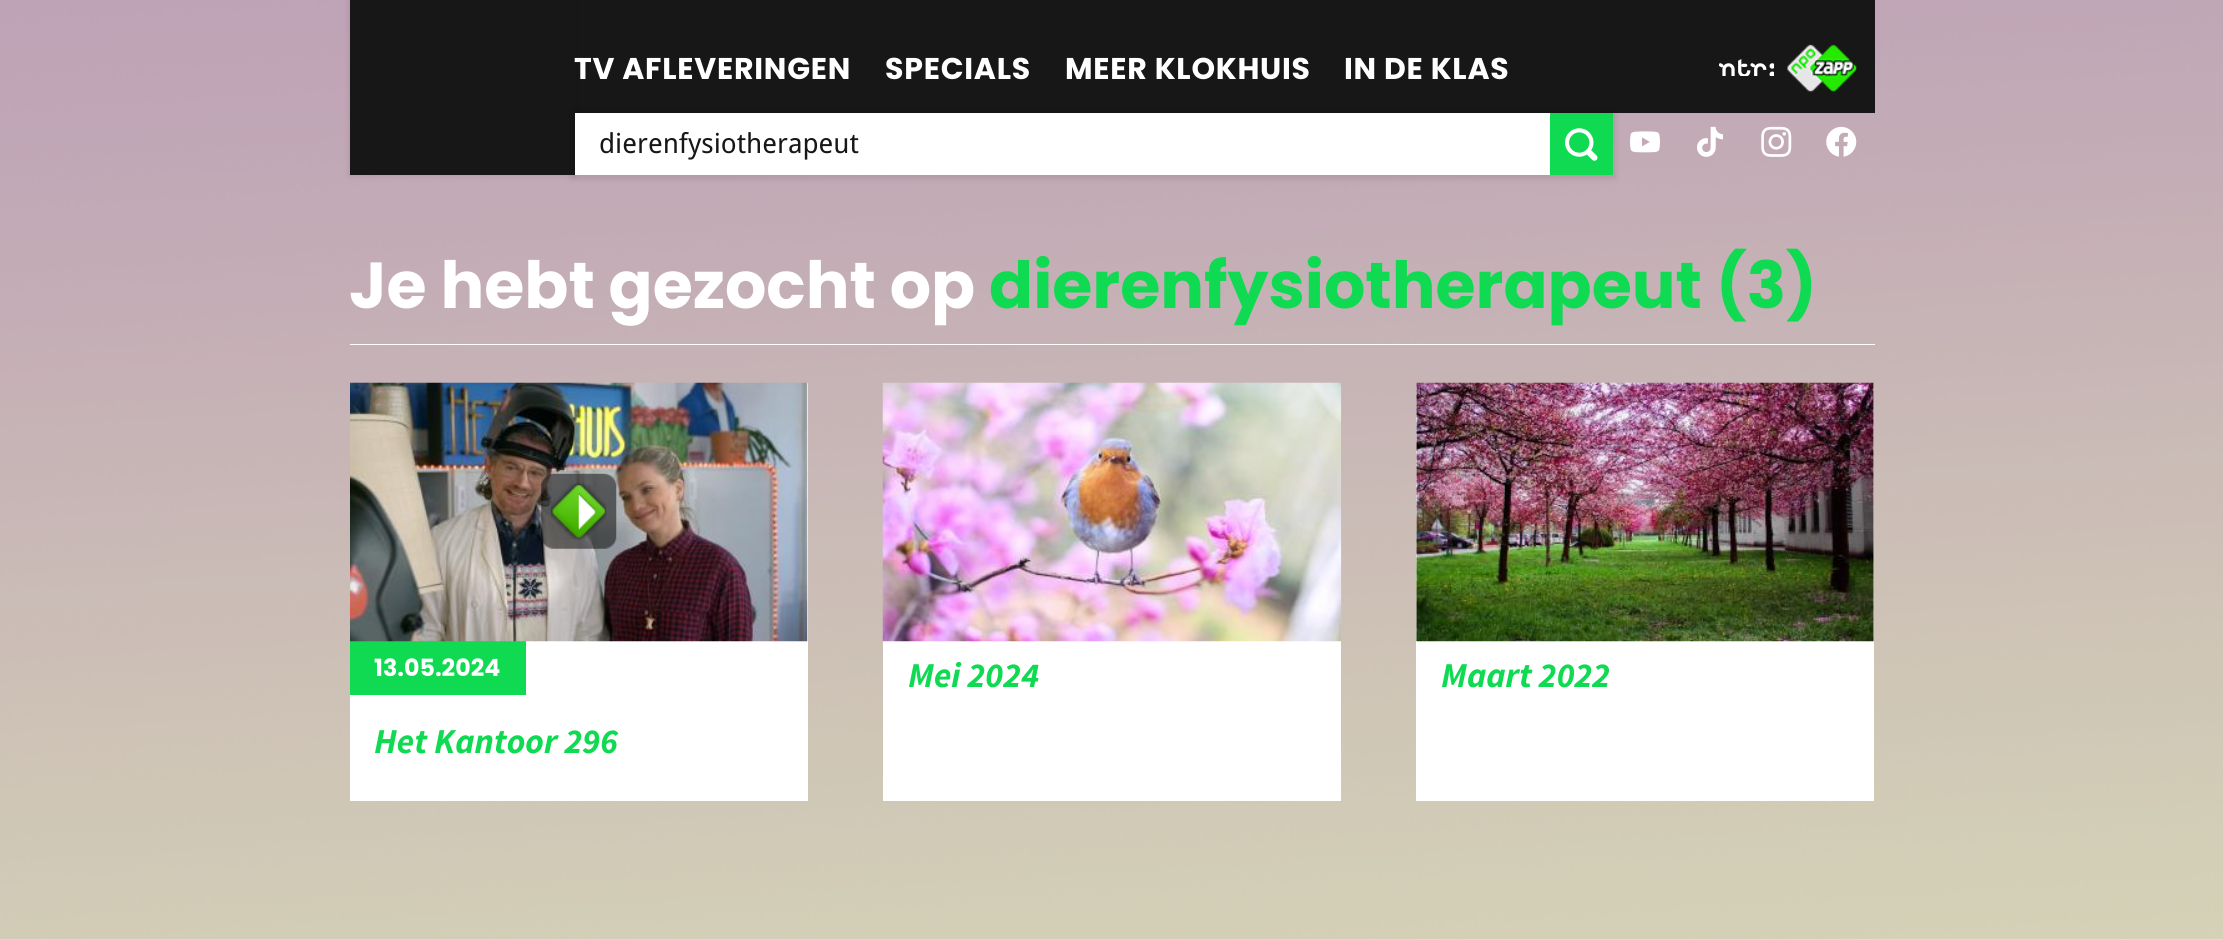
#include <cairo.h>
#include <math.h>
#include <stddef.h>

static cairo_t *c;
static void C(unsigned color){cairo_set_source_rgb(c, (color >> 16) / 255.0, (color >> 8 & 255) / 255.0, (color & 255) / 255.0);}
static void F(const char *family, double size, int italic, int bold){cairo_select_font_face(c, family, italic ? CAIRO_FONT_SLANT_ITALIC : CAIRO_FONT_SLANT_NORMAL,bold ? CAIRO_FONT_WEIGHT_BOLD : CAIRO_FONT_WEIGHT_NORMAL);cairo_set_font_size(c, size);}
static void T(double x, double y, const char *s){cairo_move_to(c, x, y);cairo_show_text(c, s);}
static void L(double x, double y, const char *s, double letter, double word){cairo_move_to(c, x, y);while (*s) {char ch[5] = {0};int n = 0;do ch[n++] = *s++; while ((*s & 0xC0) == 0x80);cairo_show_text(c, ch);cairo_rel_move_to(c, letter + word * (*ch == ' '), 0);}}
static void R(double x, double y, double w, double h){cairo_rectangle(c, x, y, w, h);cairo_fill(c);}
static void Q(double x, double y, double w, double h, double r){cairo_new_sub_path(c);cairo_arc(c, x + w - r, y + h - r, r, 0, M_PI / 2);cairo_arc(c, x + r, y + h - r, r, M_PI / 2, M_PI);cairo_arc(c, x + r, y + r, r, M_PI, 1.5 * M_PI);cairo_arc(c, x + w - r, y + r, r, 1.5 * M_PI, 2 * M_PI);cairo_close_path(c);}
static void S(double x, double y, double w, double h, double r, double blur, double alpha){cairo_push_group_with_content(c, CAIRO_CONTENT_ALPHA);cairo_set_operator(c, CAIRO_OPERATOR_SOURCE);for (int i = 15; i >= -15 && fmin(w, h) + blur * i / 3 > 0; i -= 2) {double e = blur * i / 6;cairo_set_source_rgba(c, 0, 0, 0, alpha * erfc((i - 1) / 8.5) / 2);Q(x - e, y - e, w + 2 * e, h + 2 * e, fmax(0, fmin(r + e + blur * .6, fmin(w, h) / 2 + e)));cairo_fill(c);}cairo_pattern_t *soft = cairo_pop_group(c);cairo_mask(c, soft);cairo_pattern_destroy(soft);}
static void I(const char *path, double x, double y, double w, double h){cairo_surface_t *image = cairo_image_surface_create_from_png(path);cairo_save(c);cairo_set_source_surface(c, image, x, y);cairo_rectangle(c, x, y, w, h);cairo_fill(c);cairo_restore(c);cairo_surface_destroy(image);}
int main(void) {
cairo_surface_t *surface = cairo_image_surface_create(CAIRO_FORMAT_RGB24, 2223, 940);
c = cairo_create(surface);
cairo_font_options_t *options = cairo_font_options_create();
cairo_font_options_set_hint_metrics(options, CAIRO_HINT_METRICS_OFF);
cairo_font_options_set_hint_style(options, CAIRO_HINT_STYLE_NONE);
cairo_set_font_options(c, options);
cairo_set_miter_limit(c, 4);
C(0xffffff);
cairo_paint(c);
I("1.png",0,0,2223,940);
C(0x171717);
R(575,0,1300,113);
C(0x000000);
S(349,-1,227,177,0,3,.1);
C(0x171717);
R(350,0,225,175);
F("Poppins",30,0,1);
C(0xffffff);
L(574,79,"TV AFLEVERINGEN",.75,0);
L(885,79,"SPECIALS",.75,0);
L(1065,79,"MEER KLOKHUIS",.75,0);
L(1344,79,"IN DE KLAS",.75,0);
C(0x000000);
S(571,109,1045,70,0,3,.1);
C(0xffffff);
R(575,113,975,62);
F("Droid Sans",27.5,0,0);
C(0x171717);
T(599,153,"dierenfysiotherapeut");
C(0x0fda52);
R(1550,113,63,62);
I("2.png",1565,128,33,33);
I("3.png",1719,59,55,17);
I("4.png",1787,44,70,48);
I("5.png",1630,131,30,22);
I("6.png",1697,126,26,31);
I("7.png",1761,126,31,31);
I("8.png",1826,126,31,31);
C(0xffffff);
R(350,344,1525,1);
F("Poppins",65,0,1);
T(349,308,"Je hebt gezocht op");
C(0x0fda52);
T(989,308,"dierenfysiotherapeut (3)");
C(0xffffff);
R(350,383,458,418);
C(0x0fda52);
R(350,641,176,54);
I("9.png",350,382,458,260);
I("10.png",541,473,76,76);
F("Poppins",23.75,0,1);
C(0xffffff);
T(374,676,"13.05.2024");
F("Source Sans Pro",35,1,1);
C(0x0fda52);
T(374,753,"Het Kantoor 296");
C(0xffffff);
R(883,641,458,160);
I("11.png",882,382,460,260);
C(0x0fda52);
T(908,687,"Mei 2024");
C(0xffffff);
R(1416,383,458,418);
I("12.png",1416,382,458,260);
C(0x0fda52);
T(1441,687,"Maart 2022");
cairo_surface_write_to_png(surface, "o.png");
cairo_font_options_destroy(options);
cairo_destroy(c);
cairo_surface_destroy(surface);
return 0;
}
